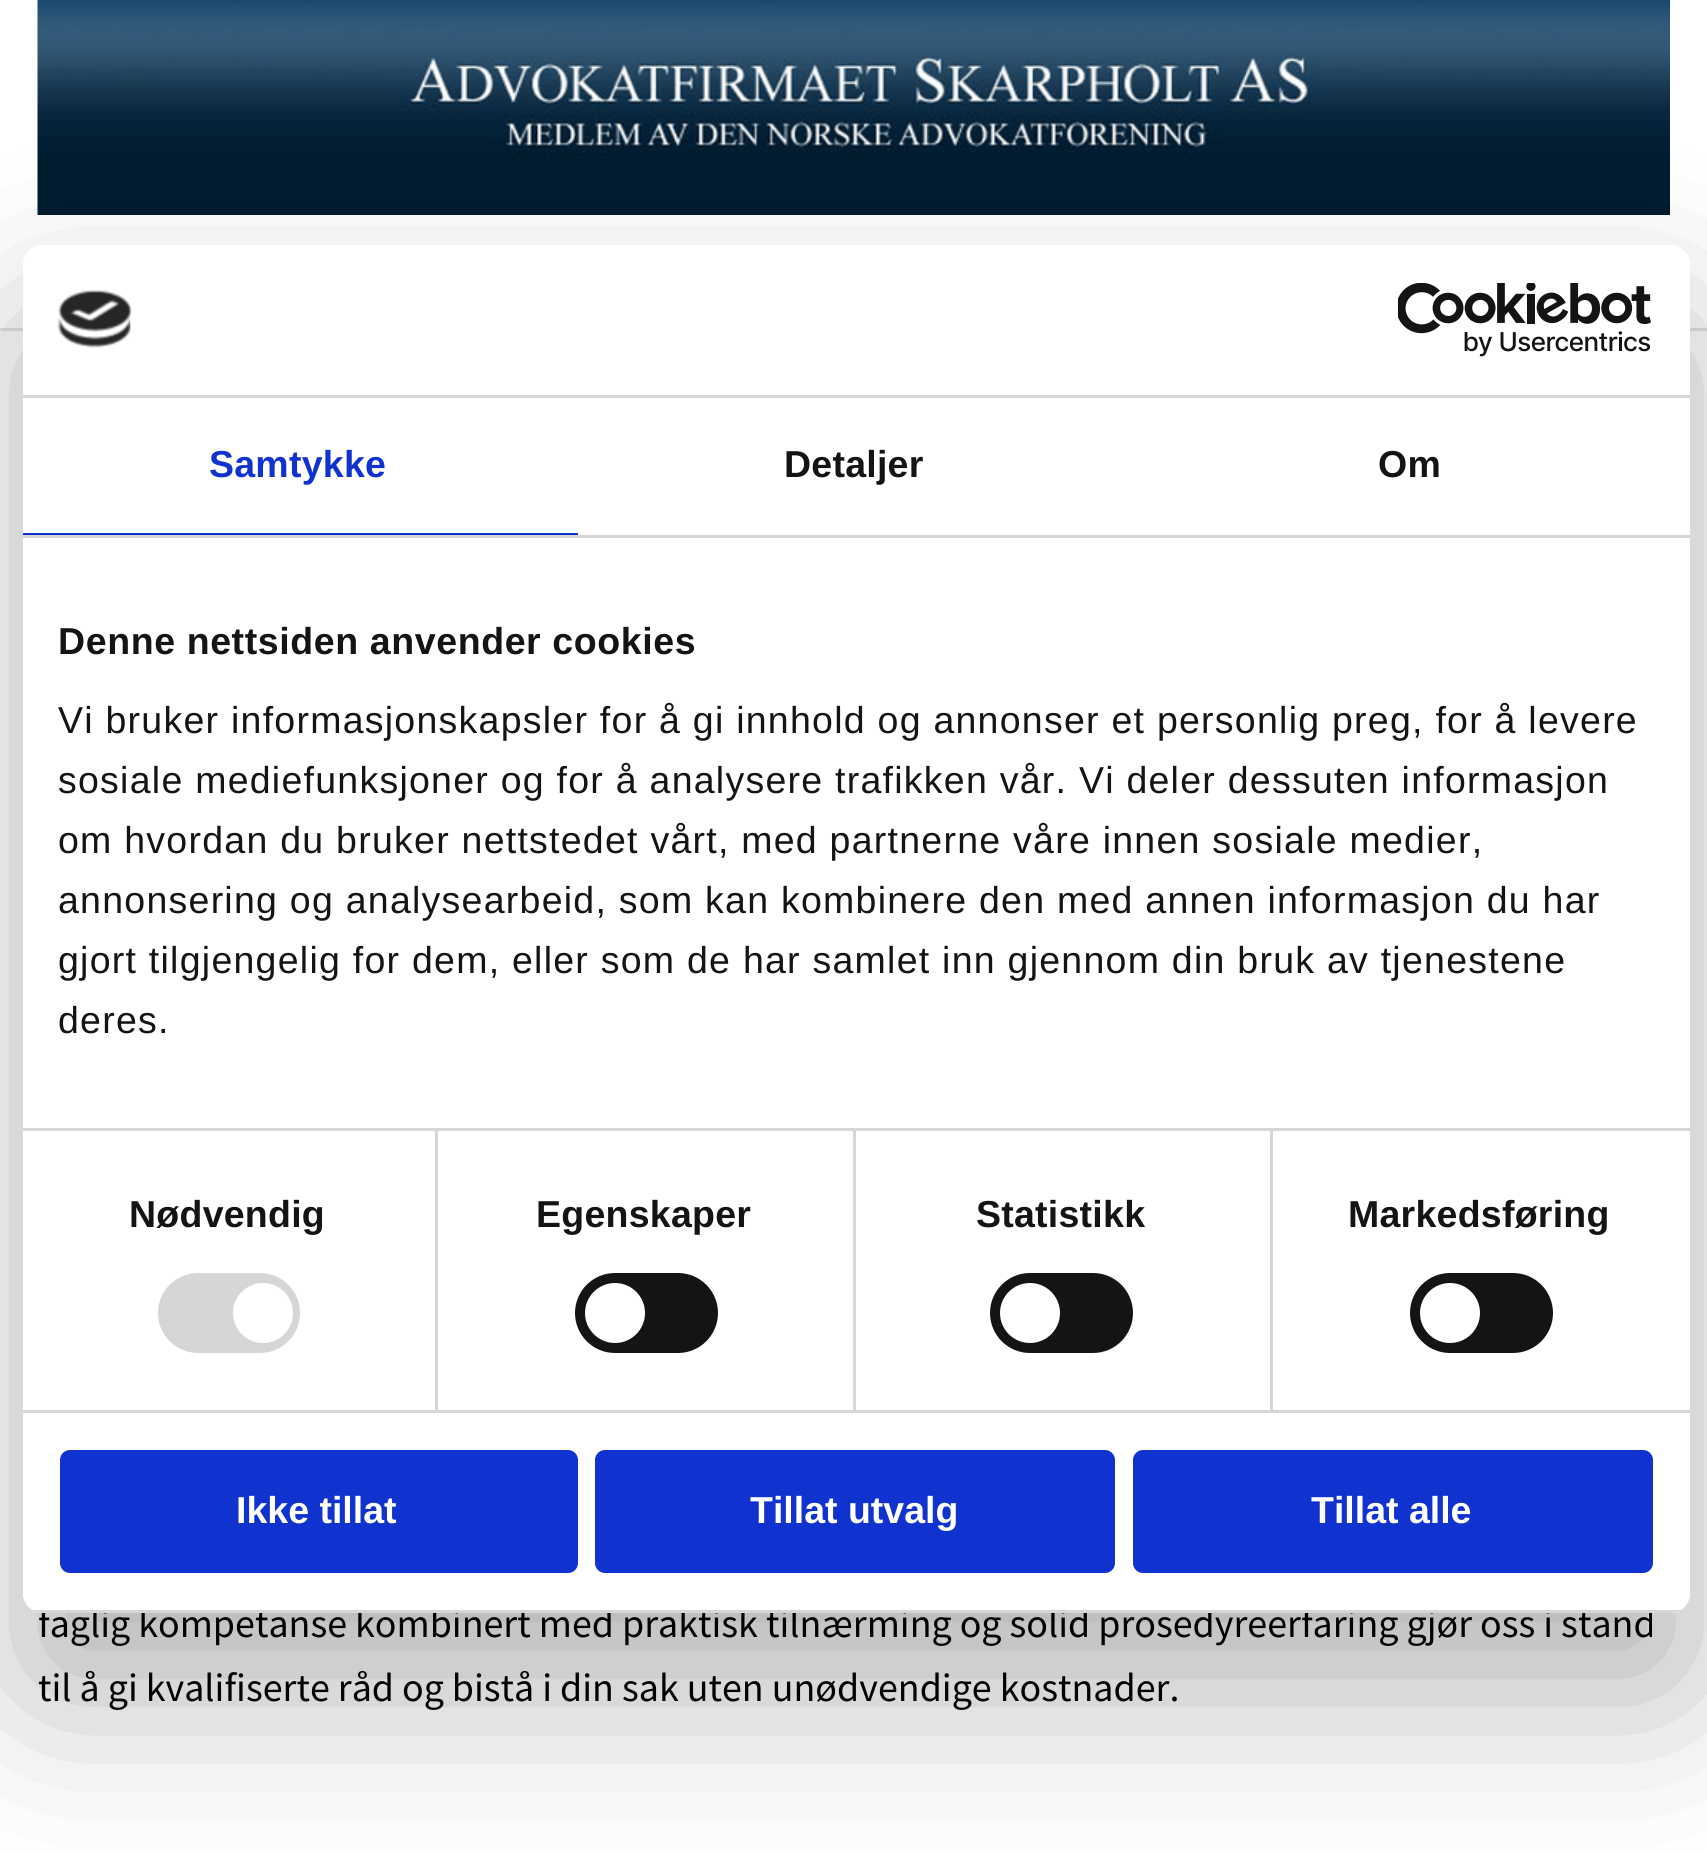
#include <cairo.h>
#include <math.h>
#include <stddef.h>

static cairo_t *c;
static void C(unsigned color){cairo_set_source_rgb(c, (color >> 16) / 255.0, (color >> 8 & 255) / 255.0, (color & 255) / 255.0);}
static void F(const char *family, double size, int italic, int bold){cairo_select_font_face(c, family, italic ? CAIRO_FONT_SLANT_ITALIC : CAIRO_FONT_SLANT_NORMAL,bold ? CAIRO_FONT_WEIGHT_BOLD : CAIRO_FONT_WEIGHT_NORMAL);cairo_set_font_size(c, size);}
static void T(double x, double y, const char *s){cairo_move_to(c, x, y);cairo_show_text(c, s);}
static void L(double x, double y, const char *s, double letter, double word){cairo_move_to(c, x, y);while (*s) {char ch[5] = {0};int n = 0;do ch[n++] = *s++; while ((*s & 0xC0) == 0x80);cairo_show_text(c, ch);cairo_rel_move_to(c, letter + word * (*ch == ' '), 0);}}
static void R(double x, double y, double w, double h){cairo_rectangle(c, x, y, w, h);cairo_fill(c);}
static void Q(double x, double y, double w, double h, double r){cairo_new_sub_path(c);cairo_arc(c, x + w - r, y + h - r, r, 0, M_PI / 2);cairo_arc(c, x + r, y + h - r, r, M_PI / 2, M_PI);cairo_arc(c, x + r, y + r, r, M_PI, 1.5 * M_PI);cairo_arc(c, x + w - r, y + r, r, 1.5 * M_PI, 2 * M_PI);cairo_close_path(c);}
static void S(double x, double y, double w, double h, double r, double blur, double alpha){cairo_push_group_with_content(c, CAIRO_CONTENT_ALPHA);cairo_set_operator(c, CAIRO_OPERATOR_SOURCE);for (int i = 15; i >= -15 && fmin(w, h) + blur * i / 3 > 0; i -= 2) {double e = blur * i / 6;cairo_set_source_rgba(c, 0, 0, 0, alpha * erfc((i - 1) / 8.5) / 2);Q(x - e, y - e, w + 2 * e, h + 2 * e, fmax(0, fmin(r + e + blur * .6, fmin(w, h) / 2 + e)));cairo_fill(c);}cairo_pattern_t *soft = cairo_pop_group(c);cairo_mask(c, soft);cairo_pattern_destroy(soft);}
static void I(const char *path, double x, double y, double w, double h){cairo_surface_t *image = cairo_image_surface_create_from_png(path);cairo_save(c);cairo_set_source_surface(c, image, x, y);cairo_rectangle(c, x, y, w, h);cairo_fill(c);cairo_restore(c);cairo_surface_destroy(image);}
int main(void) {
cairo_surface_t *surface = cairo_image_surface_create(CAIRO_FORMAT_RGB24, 1707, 1854);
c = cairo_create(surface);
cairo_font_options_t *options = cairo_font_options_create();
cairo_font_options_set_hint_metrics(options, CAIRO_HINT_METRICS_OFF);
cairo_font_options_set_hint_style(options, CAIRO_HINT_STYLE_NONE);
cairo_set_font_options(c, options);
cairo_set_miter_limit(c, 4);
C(0xffffff);
cairo_paint(c);
C(0xe3e3e3);
R(0,328,1707,3);
I("3.png",37,0,1633,215);
cairo_save(c);
cairo_set_fill_rule(c,CAIRO_FILL_RULE_EVEN_ODD);
cairo_new_path(c);
cairo_move_to(c,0,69);
cairo_line_to(c,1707,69);
cairo_line_to(c,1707,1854);
cairo_line_to(c,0,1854);
cairo_close_path(c);
cairo_move_to(c,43,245);
cairo_line_to(c,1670,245);
cairo_curve_to(c,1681,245,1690,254,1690,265);
cairo_line_to(c,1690,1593);
cairo_curve_to(c,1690,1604,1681,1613,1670,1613);
cairo_line_to(c,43,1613);
cairo_curve_to(c,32,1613,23,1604,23,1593);
cairo_line_to(c,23,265);
cairo_curve_to(c,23,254,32,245,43,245);
cairo_close_path(c);
cairo_clip(c);
C(0x000000);
S(23,325,1667,1368,20,85,.3);
cairo_restore(c);
F("Source Sans Pro",40,0,0);
C(0x030303);
T(38,1637,"faglig kompetanse kombinert med praktisk tilnærming og solid prosedyreerfaring gjør oss i stand");
C(0xffffff);
Q(23,245,1667,1368,20);
cairo_fill(c);
C(0xd6d6d6);
R(23,395,1667,3);
I("1.png",57,290,75,58);
I("2.png",1398,283,253,74);
R(23,535,1667,3);
C(0x1032cf);
R(23,533,555,2);
F("Liberation Sans",37.5,0,1);
L(209,477,"Samtykke",.25,0);
C(0x141414);
L(784,477,"Detaljer",.25,0);
L(1378,477,"Om",.25,0);
C(0xd6d6d6);
R(435,1130,3,280);
R(853,1130,3,280);
R(1270,1130,3,280);
R(23,1128,1667,3);
C(0x141414);
L(58,654,"Denne nettsiden anvender cookies",.6,0);
F("Liberation Sans",37.5,0,0);
L(58,733,"Vi bruker informasjonskapsler for å gi innhold og annonser et personlig preg, for å levere",1.25,0);
L(58,793,"sosiale mediefunksjoner og for å analysere trafikken vår. Vi deler dessuten informasjon",1.25,0);
L(58,853,"om hvordan du bruker nettstedet vårt, med partnerne våre innen sosiale medier,",1.25,0);
L(58,913,"annonsering og analysearbeid, som kan kombinere den med annen informasjon du har",1.25,0);
L(58,973,"gjort tilgjengelig for dem, eller som de har samlet inn gjennom din bruk av tjenestene",1.25,0);
L(58,1033,"deres.",1.25,0);
C(0xd6d6d6);
R(23,1410,1667,3);
F("Liberation Sans",37.5,0,1);
C(0x141414);
L(129,1227,"Nødvendig",.25,0);
C(0xd6d6d6);
Q(158,1273,142,80,40);
cairo_fill(c);
C(0xffffff);
cairo_arc(c,263,1313,30,0,2 * M_PI);
cairo_fill(c);
C(0x141414);
L(536,1227,"Egenskaper",.25,0);
Q(575,1273,143,80,40);
cairo_fill(c);
C(0xffffff);
cairo_arc(c,615,1313,30,0,2 * M_PI);
cairo_fill(c);
C(0x141414);
L(976,1227,"Statistikk",.25,0);
Q(990,1273,143,80,40);
cairo_fill(c);
C(0xffffff);
cairo_arc(c,1030,1313,30,0,2 * M_PI);
cairo_fill(c);
C(0x141414);
L(1348,1227,"Markedsføring",.25,0);
Q(1410,1273,143,80,40);
cairo_fill(c);
C(0xffffff);
cairo_arc(c,1450,1313,30,0,2 * M_PI);
cairo_fill(c);
cairo_save(c);
Q(23,245,1667,1368,20);
cairo_clip(c);
C(0xd6d6d6);
R(32,1610,1649,3);
cairo_restore(c);
C(0x1032cf);
Q(62.5,1452.5,513,118,7.5);
cairo_fill_preserve(c);
cairo_set_line_width(c,5);
cairo_stroke(c);
C(0xffffff);
T(236,1523,"Ikke tillat");
C(0x1032cf);
Q(597.5,1452.5,515,118,7.5);
cairo_fill_preserve(c);
cairo_stroke(c);
C(0xffffff);
T(750,1523,"Tillat utvalg");
C(0x1032cf);
Q(1135.5,1452.5,515,118,7.5);
cairo_fill_preserve(c);
cairo_stroke(c);
C(0xffffff);
T(1311,1523,"Tillat alle");
F("Source Sans Pro",40,0,0);
C(0x030303);
T(38,1701,"til å gi kvalifiserte råd og bistå i din sak uten unødvendige kostnader.");
cairo_surface_write_to_png(surface, "o.png");
cairo_font_options_destroy(options);
cairo_destroy(c);
cairo_surface_destroy(surface);
return 0;
}
